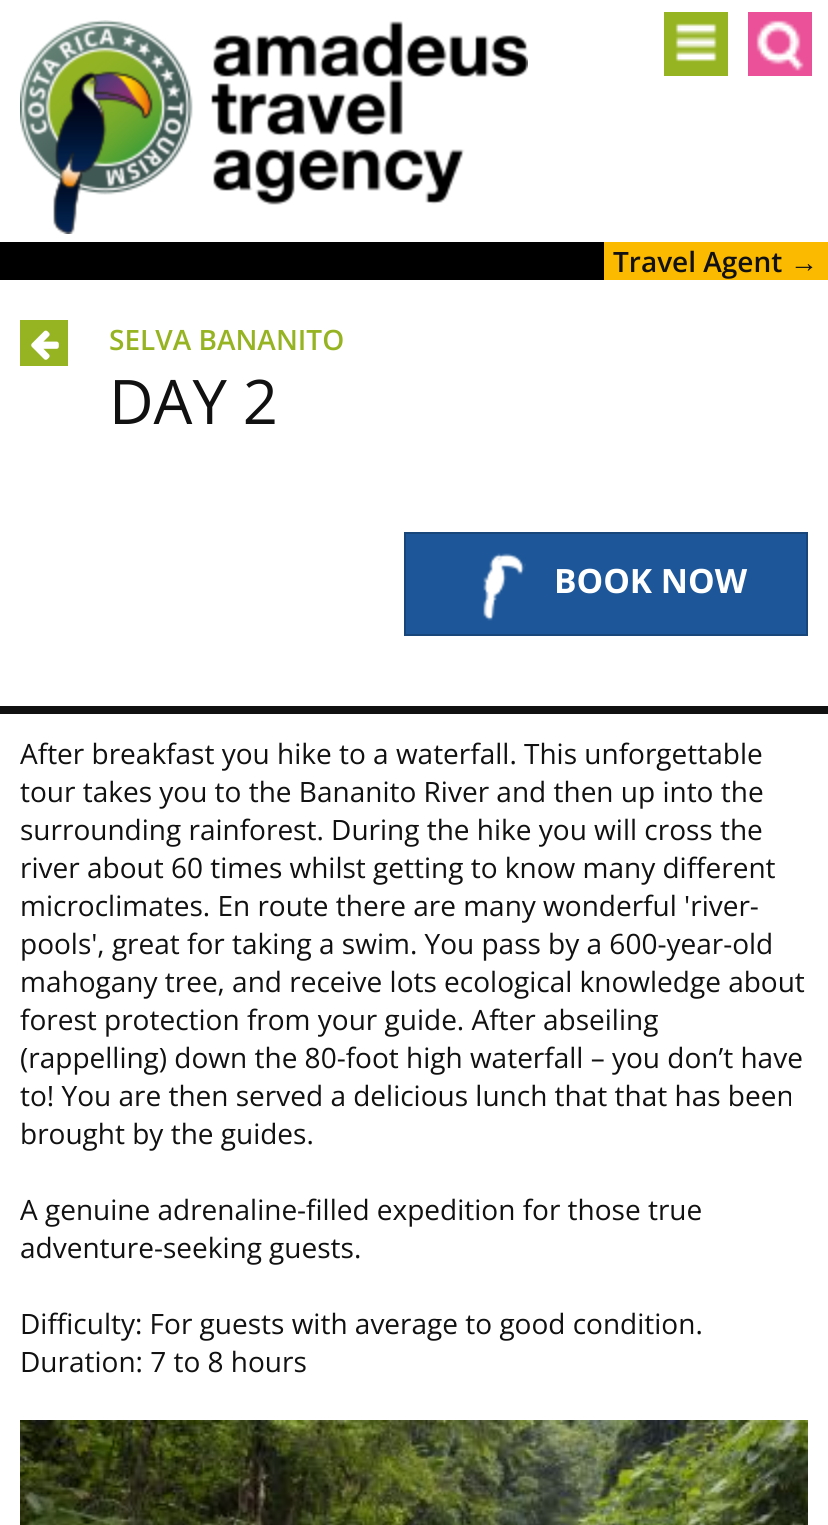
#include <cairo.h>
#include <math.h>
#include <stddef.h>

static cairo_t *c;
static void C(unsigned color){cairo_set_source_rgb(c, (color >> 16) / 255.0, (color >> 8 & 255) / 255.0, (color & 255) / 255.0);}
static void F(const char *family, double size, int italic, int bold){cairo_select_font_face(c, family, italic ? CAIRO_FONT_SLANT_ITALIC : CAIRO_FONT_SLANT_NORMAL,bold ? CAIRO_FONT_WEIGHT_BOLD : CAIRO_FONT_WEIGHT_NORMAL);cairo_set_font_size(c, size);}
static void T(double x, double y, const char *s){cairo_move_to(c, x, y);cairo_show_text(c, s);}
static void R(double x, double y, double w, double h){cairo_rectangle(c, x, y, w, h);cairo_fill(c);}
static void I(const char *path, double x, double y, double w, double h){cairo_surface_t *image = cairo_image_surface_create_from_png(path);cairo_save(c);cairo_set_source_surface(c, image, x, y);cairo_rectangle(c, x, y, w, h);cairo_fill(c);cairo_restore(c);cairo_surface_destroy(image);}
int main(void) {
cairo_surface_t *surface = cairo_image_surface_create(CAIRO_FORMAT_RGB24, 828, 1525);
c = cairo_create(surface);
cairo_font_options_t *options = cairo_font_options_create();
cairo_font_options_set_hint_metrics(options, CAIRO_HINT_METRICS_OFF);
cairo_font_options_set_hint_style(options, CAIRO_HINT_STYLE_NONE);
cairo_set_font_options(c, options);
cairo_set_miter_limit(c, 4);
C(0xffffff);
cairo_paint(c);
I("1.png",20,20,508,214);
I("2.png",664,12,64,64);
I("3.png",748,12,64,64);
C(0x000000);
R(0,242,604,38);
C(0xfbb900);
R(604,242,224,38);
F("Open Sans SemiBold",28,0,0);
C(0x111111);
T(613,272,"Travel Agent");
F("Liberation Sans",28,0,1);
T(790,272,"→");
C(0x96b422);
R(20,320,48,46);
I("4.png",31,330,28,30);
F("Open Sans SemiBold",28,0,0);
T(109,350,"SELVA BANANITO");
F("Open Sans",61.5,0,0);
C(0x111111);
T(109,424,"DAY 2");
C(0x1e5799);
cairo_rectangle(c,405,533,402,102);
cairo_fill_preserve(c);
C(0x18467a);
cairo_stroke(c);
I("5.png",483,553,43,68);
F("Open Sans",33.5,0,1);
C(0xffffff);
T(554,593,"BOOK NOW");
C(0x111111);
R(0,706,828,8);
F("Open Sans",28,0,0);
T(20,764,"After breakfast you hike to a waterfall. This unforgettable");
T(20,802,"tour takes you to the Bananito River and then up into the");
T(20,840,"surrounding rainforest. During the hike you will cross the");
T(20,878,"river about 60 times whilst getting to know many different");
T(20,916,"microclimates. En route there are many wonderful 'river-");
T(20,954,"pools', great for taking a swim. You pass by a 600-year-old");
T(20,992,"mahogany tree, and receive lots ecological knowledge about");
T(20,1030,"forest protection from your guide. After abseiling");
T(20,1068,"(rappelling) down the 80-foot high waterfall – you don’t have");
T(20,1106,"to! You are then served a delicious lunch that that has been");
T(20,1144,"brought by the guides.");
T(20,1220,"A genuine adrenaline-filled expedition for those true");
T(20,1258,"adventure-seeking guests.");
T(20,1334,"Difficulty: For guests with average to good condition.");
T(20,1372,"Duration: 7 to 8 hours");
I("6.png",20,1420,788,105);
cairo_surface_write_to_png(surface, "o.png");
cairo_font_options_destroy(options);
cairo_destroy(c);
cairo_surface_destroy(surface);
return 0;
}
